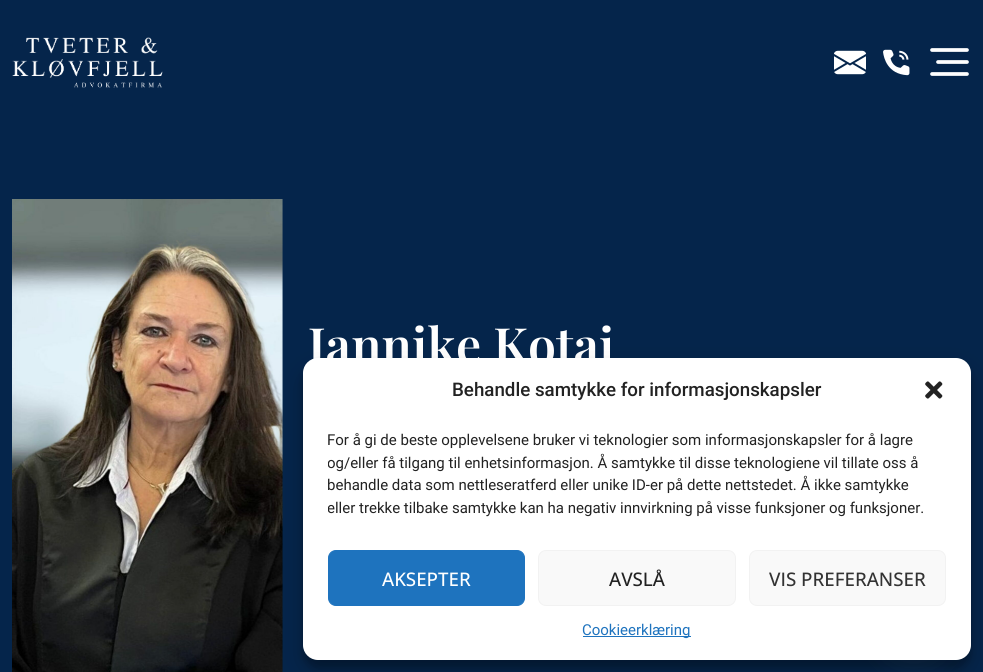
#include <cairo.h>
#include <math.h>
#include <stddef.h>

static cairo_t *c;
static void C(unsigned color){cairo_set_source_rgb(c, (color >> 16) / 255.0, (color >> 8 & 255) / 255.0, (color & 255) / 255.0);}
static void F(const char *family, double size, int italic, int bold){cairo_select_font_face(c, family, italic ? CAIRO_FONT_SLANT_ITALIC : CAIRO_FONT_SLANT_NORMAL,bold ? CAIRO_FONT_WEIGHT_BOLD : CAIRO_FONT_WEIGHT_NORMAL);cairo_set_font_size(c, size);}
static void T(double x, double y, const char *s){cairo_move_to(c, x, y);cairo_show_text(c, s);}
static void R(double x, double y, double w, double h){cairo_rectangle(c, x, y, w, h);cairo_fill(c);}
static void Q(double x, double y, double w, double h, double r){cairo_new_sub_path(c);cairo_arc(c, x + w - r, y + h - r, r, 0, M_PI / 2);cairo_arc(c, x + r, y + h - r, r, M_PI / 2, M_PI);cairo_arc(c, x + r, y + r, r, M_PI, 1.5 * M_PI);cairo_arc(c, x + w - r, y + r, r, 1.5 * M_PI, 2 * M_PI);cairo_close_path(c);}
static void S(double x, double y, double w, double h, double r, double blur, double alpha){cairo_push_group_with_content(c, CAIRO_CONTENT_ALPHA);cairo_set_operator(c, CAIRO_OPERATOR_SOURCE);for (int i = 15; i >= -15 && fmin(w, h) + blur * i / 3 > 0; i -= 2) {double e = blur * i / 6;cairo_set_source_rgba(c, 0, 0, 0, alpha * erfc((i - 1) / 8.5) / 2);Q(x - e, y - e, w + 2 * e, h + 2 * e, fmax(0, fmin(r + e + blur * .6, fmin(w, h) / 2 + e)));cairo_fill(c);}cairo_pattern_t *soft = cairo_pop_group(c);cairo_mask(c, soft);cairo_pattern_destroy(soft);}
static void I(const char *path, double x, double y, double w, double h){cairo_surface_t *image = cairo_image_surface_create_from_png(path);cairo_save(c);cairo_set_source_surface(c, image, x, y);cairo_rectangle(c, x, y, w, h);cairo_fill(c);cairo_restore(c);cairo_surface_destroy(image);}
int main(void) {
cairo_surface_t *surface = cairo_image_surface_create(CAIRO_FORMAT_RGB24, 983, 672);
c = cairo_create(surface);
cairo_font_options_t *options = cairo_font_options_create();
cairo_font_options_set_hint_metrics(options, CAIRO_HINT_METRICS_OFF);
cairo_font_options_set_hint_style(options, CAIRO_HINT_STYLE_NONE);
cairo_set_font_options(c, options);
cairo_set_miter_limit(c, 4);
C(0x05254b);
cairo_paint(c);
I("1.png",12,37,151,51);
I("2.png",834,50,32,25);
I("3.png",883,49,27,27);
cairo_new_path(c);
cairo_move_to(c,932,50);
cairo_line_to(c,967,50);
cairo_move_to(c,938,62);
cairo_line_to(c,967,62);
cairo_move_to(c,932,74);
cairo_line_to(c,967,74);
C(0xffffff);
cairo_set_line_width(c,3.7);
cairo_set_line_cap(c,CAIRO_LINE_CAP_ROUND);
cairo_stroke(c);
I("4.png",12,199,271,473);
F("Playfair Display SemiBold",50,0,0);
T(308,364,"Jannike Kotai");
C(0x000000);
S(303,365,668,303,15,4,.23);
S(303,370,668,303,15,12.5,.19);
C(0x49687e);
S(880,594,68,67,33.5,15,.16);
C(0xffffff);
Q(303,358,668,302,15);
cairo_fill(c);
F("Roboto Medium",18.75,0,0);
C(0x222222);
T(452,396,"Behandle samtykke for informasjonskapsler");
I("5.png",925,381,18,18);
F("Roboto",15,0,0);
T(327,445,"For å gi de beste opplevelsene bruker vi teknologier som informasjonskapsler for å lagre");
cairo_save(c);
cairo_rectangle(c,328,429,618,96);
cairo_clip(c);
T(327,468,"og/eller få tilgang til enhetsinformasjon. Å samtykke til disse teknologiene vil tillate oss å");
T(327,490,"behandle data som nettleseratferd eller unike ID-er på dette nettstedet. Å ikke samtykke");
T(327,513,"eller trekke tilbake samtykke kan ha negativ innvirkning på visse funksjoner og funksjoner.");
cairo_restore(c);
C(0x1e73be);
Q(328.5,550.5,196,55,7.5);
cairo_fill_preserve(c);
cairo_set_line_width(c,1);
cairo_set_line_cap(c,CAIRO_LINE_CAP_BUTT);
cairo_stroke(c);
F("Open Sans Medium",18.75,0,0);
C(0xffffff);
T(382,586,"AKSEPTER");
C(0xf9f9f9);
Q(538.5,550.5,197,55,7.5);
cairo_fill_preserve(c);
C(0xf2f2f2);
cairo_stroke(c);
C(0x222222);
T(609,586,"AVSLÅ");
C(0xf9f9f9);
Q(749.5,550.5,196,55,7.5);
cairo_fill_preserve(c);
C(0xf2f2f2);
cairo_stroke(c);
C(0x333333);
T(769,586,"VIS PREFERANSER");
C(0x1e73be);
R(583,636,108,1);
F("Roboto",15,0,0);
T(582,635,"Cookieerklæring");
cairo_surface_write_to_png(surface, "o.png");
cairo_font_options_destroy(options);
cairo_destroy(c);
cairo_surface_destroy(surface);
return 0;
}
